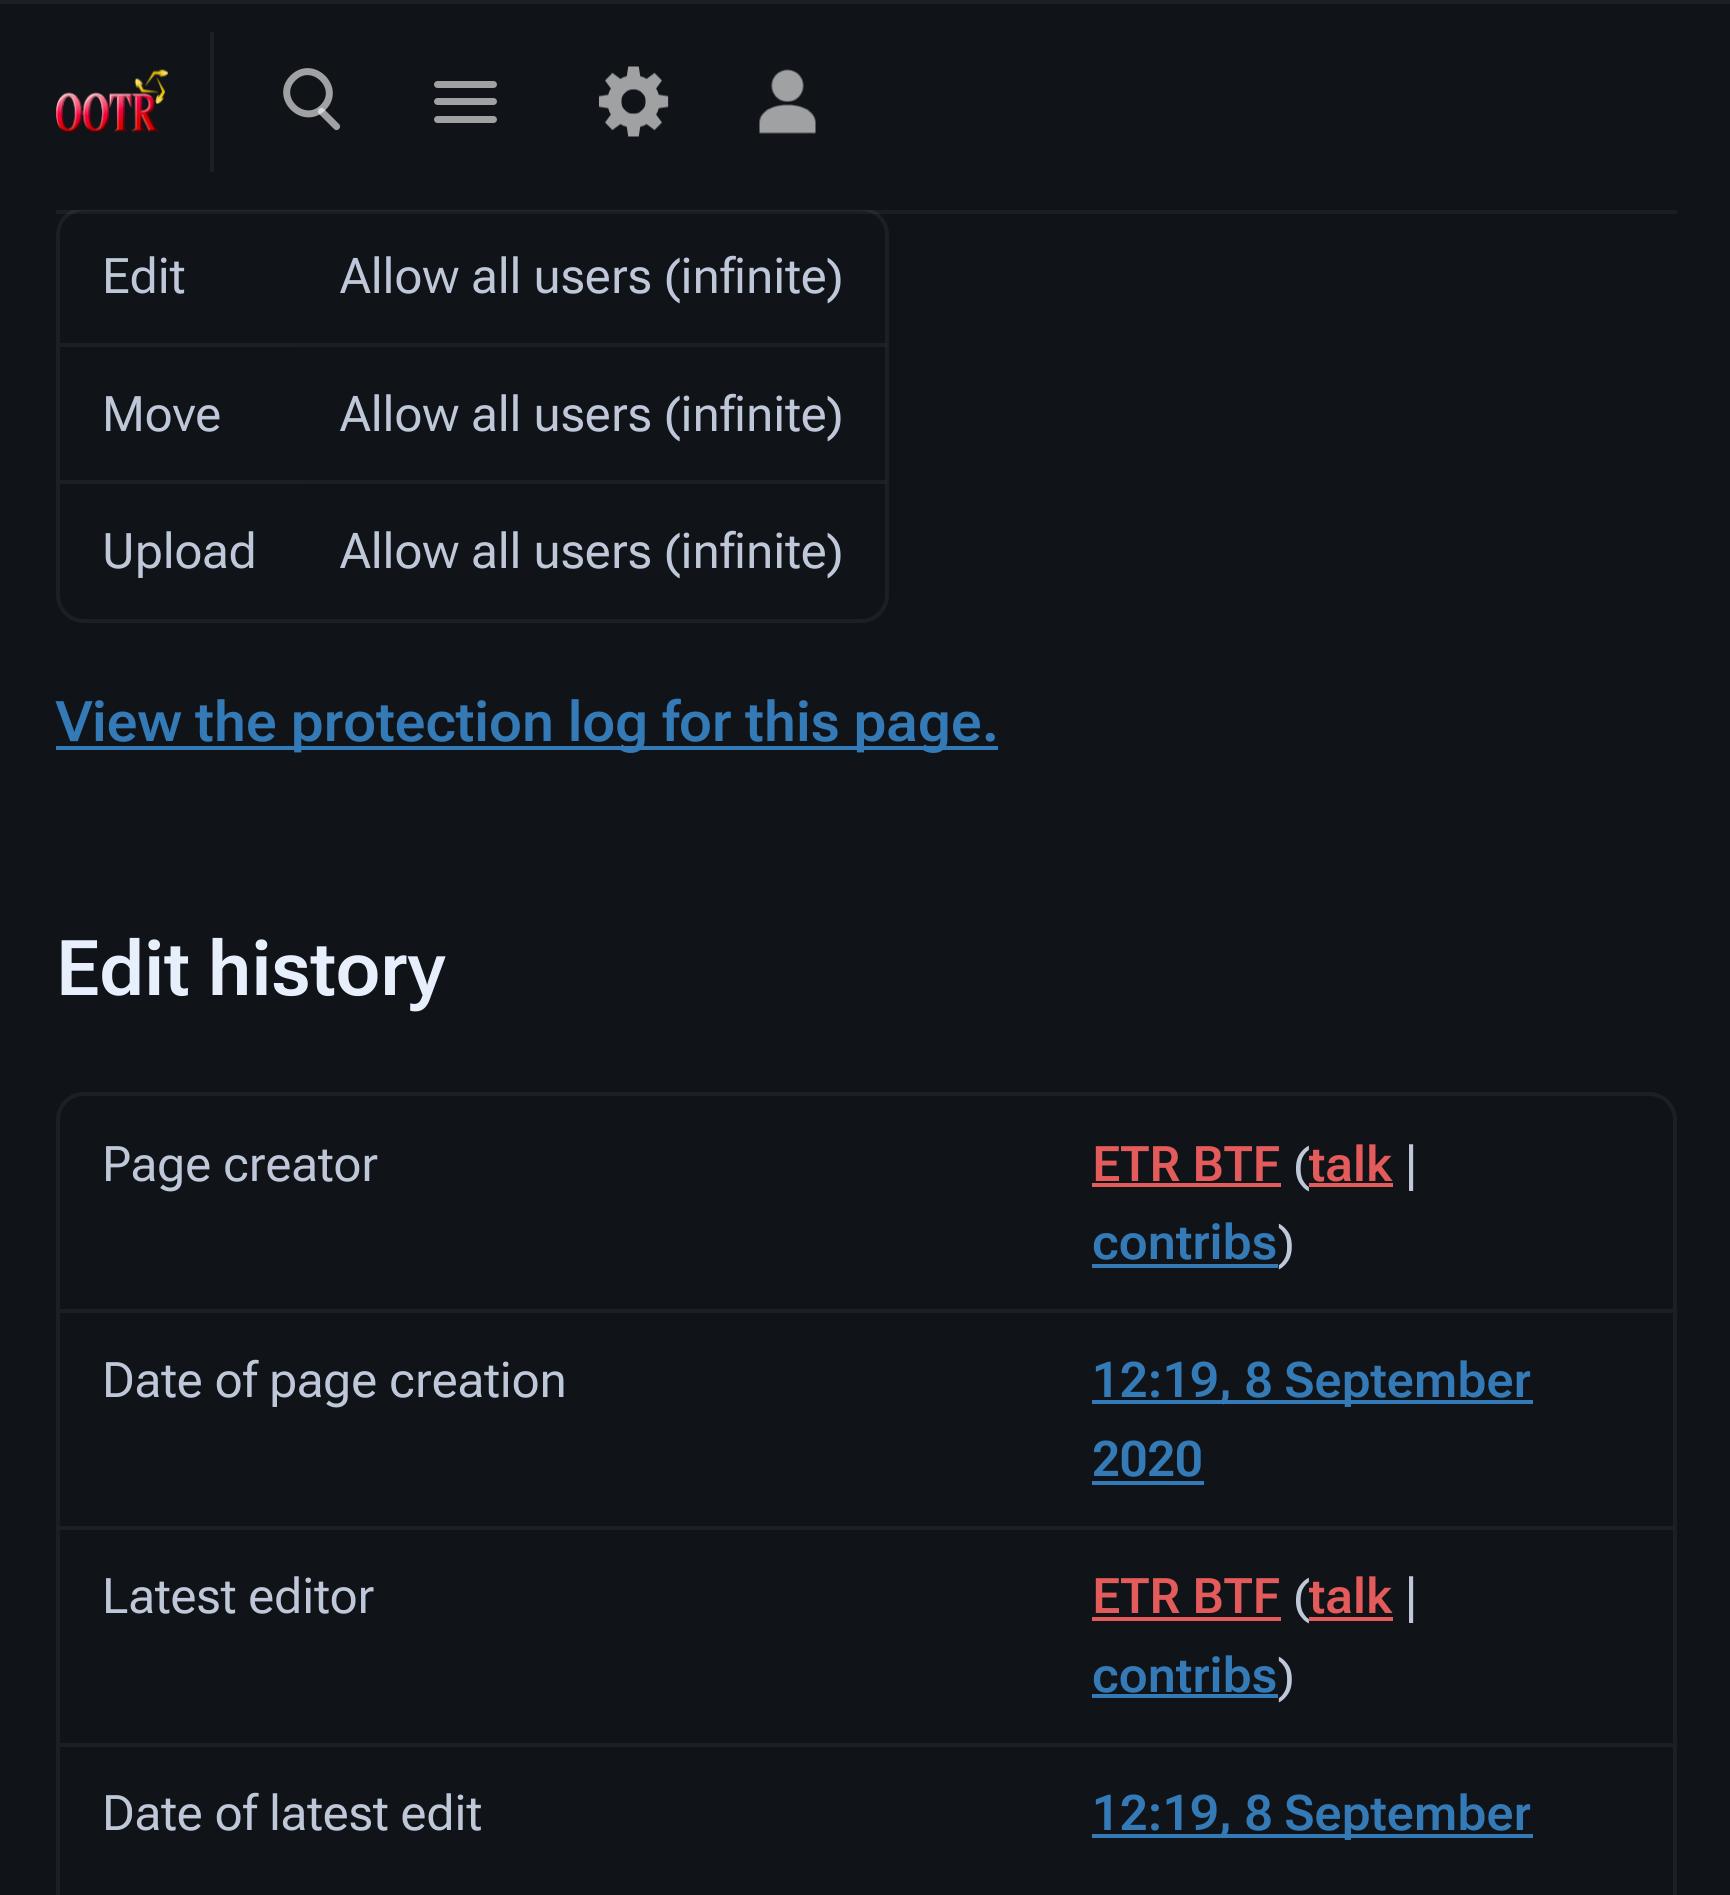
#include <cairo.h>
#include <math.h>
#include <stddef.h>

static cairo_t *c;
static void C(unsigned color){cairo_set_source_rgb(c, (color >> 16) / 255.0, (color >> 8 & 255) / 255.0, (color & 255) / 255.0);}
static void F(const char *family, double size, int italic, int bold){cairo_select_font_face(c, family, italic ? CAIRO_FONT_SLANT_ITALIC : CAIRO_FONT_SLANT_NORMAL,bold ? CAIRO_FONT_WEIGHT_BOLD : CAIRO_FONT_WEIGHT_NORMAL);cairo_set_font_size(c, size);}
static void T(double x, double y, const char *s){cairo_move_to(c, x, y);cairo_show_text(c, s);}
static void R(double x, double y, double w, double h){cairo_rectangle(c, x, y, w, h);cairo_fill(c);}
static void Q(double x, double y, double w, double h, double r){cairo_new_sub_path(c);cairo_arc(c, x + w - r, y + h - r, r, 0, M_PI / 2);cairo_arc(c, x + r, y + h - r, r, M_PI / 2, M_PI);cairo_arc(c, x + r, y + r, r, M_PI, 1.5 * M_PI);cairo_arc(c, x + w - r, y + r, r, 1.5 * M_PI, 2 * M_PI);cairo_close_path(c);}
static void I(const char *path, double x, double y, double w, double h){cairo_surface_t *image = cairo_image_surface_create_from_png(path);cairo_save(c);cairo_set_source_surface(c, image, x, y);cairo_rectangle(c, x, y, w, h);cairo_fill(c);cairo_restore(c);cairo_surface_destroy(image);}
int main(void) {
cairo_surface_t *surface = cairo_image_surface_create(CAIRO_FORMAT_RGB24, 1730, 1895);
c = cairo_create(surface);
cairo_font_options_t *options = cairo_font_options_create();
cairo_font_options_set_hint_metrics(options, CAIRO_HINT_METRICS_OFF);
cairo_font_options_set_hint_style(options, CAIRO_HINT_STYLE_NONE);
cairo_set_font_options(c, options);
cairo_set_miter_limit(c, 4);
C(0x101318);
cairo_paint(c);
C(0x1c1f24);
R(0,0,1730,4);
R(210,32,4,140);
I("1.png",56,69,112,64);
C(0x9fa1a3);
cairo_new_path(c);
cairo_move_to(c,319,109);
cairo_curve_to(c,320.5,107.5,322.5,107.5,324,109);
cairo_line_to(c,339,124);
cairo_curve_to(c,340.5,125.5,340.5,127.5,339,129);
cairo_curve_to(c,337.5,130.5,335.5,130.5,334,129);
cairo_line_to(c,319,114);
cairo_curve_to(c,317.5,112.5,317.5,110.5,319,109);
cairo_close_path(c);
cairo_fill(c);
cairo_new_path(c);
cairo_move_to(c,293,78);
cairo_curve_to(c,312.5,58.5,342.5,88,323,107.5);
cairo_curve_to(c,303.5,127,273.5,97.5,293,78);
cairo_close_path(c);
cairo_set_source_rgba(c,1,1,1,0.6);
cairo_set_line_width(c,7);
cairo_stroke(c);
C(0x9fa1a3);
Q(434,81,63,7,3.5);
cairo_fill(c);
Q(434,98,63,7,3.5);
cairo_fill(c);
Q(434,116,63,7,3.5);
cairo_fill(c);
I("2.png",599,66,70,71);
I("3.png",759,69,57,65);
Q(58,209,829,412,26);
C(0x1c1f24);
cairo_set_line_width(c,4);
cairo_stroke(c);
cairo_set_source_rgba(c,1,1,1,0.05);
R(56,210,1621,4);
cairo_set_source_rgba(c,0.063,0.075,0.094,0.9);
R(72,207,801,3);
F("Roboto Flex",49,0,0);
C(0xbfc8d9);
T(102,293,"Edit");
T(340,293,"Allow all users (infinite)");
C(0x1c1f24);
R(60,343,238,4);
C(0xbfc8d9);
T(102,431,"Move");
cairo_set_source_rgba(c,1,1,1,0.05);
R(298,343,588,4);
C(0xbfc8d9);
T(340,431,"Allow all users (infinite)");
C(0x1c1f24);
R(60,480,238,4);
C(0xbfc8d9);
T(102,568,"Upload");
cairo_set_source_rgba(c,1,1,1,0.05);
R(298,480,588,4);
C(0xbfc8d9);
T(340,568,"Allow all users (infinite)");
C(0x337ab7);
R(56,746,942,4);
F("Roboto Flex SemiBold",56,0,0);
T(56,741,"View the protection log for this page.");
F("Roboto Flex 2 SemiBold",77,0,0);
C(0xe8effc);
T(56,995,"Edit history");
Q(58,1094,1617,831,26);
C(0x1c1f24);
cairo_stroke(c);
F("Roboto Flex",49,0,0);
C(0xbfc8d9);
T(102,1181,"Page creator");
F("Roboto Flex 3 SemiBold",49,0,0);
C(0xe35b5b);
T(1092,1181,"ETR BTF");
R(1092,1183,189,4);
F("Roboto Flex",49,0,0);
C(0xbfc8d9);
T(1293,1181,"(");
C(0xe35b5b);
R(1309,1183,84,4);
F("Roboto Flex 3 SemiBold",49,0,0);
T(1309,1181,"talk");
F("Roboto Flex",49,0,0);
C(0xbfc8d9);
T(1404,1181,"|");
F("Roboto Flex 3 SemiBold",49,0,0);
C(0x337ab7);
T(1092,1259,"contribs");
F("Roboto Flex",49,0,0);
C(0xbfc8d9);
T(1278,1259,")");
C(0x337ab7);
R(1092,1264,186,4);
C(0x1c1f24);
R(60,1309,1613,4);
C(0xbfc8d9);
T(102,1397,"Date of page creation");
C(0x337ab7);
R(1092,1400,441,4);
F("Roboto Flex 3 SemiBold",49,0,0);
T(1092,1397,"12:19, 8 September");
T(1092,1476,"2020");
R(1092,1481,112,4);
C(0x1c1f24);
R(60,1526,1613,4);
F("Roboto Flex",49,0,0);
C(0xbfc8d9);
T(102,1613,"Latest editor");
F("Roboto Flex 3 SemiBold",49,0,0);
C(0xe35b5b);
T(1092,1613,"ETR BTF");
R(1092,1617,189,4);
F("Roboto Flex",49,0,0);
C(0xbfc8d9);
T(1293,1613,"(");
C(0xe35b5b);
R(1309,1617,84,4);
F("Roboto Flex 3 SemiBold",49,0,0);
T(1309,1613,"talk");
F("Roboto Flex",49,0,0);
C(0xbfc8d9);
T(1404,1613,"|");
F("Roboto Flex 3 SemiBold",49,0,0);
C(0x337ab7);
T(1092,1692,"contribs");
F("Roboto Flex",49,0,0);
C(0xbfc8d9);
T(1278,1692,")");
C(0x337ab7);
R(1092,1694,186,4);
C(0x1c1f24);
R(60,1743,1613,4);
C(0xbfc8d9);
T(102,1830,"Date of latest edit");
C(0x337ab7);
R(1092,1834,441,4);
F("Roboto Flex 3 SemiBold",49,0,0);
T(1092,1830,"12:19, 8 September");
cairo_surface_write_to_png(surface, "o.png");
cairo_font_options_destroy(options);
cairo_destroy(c);
cairo_surface_destroy(surface);
return 0;
}
